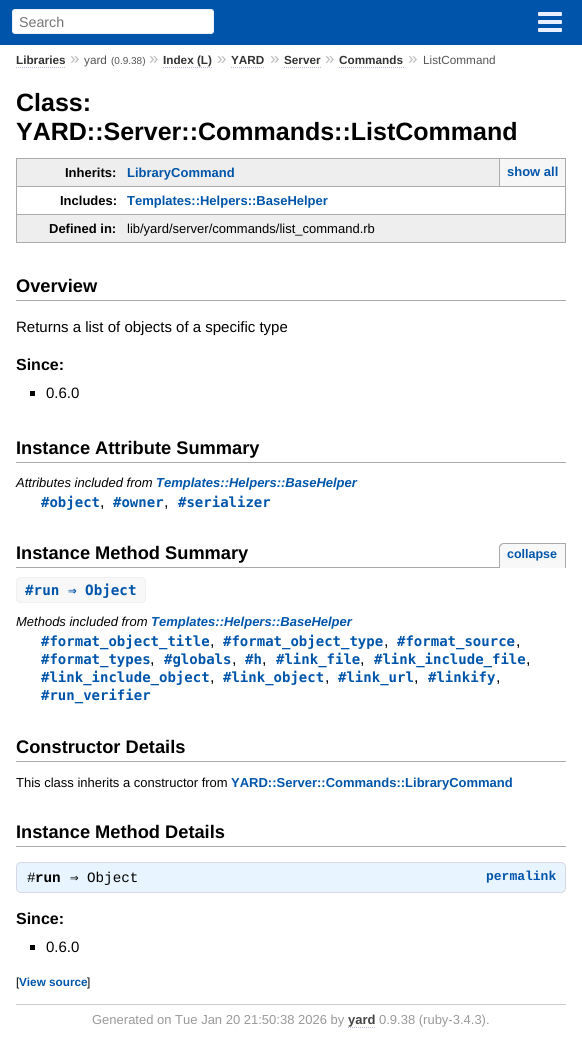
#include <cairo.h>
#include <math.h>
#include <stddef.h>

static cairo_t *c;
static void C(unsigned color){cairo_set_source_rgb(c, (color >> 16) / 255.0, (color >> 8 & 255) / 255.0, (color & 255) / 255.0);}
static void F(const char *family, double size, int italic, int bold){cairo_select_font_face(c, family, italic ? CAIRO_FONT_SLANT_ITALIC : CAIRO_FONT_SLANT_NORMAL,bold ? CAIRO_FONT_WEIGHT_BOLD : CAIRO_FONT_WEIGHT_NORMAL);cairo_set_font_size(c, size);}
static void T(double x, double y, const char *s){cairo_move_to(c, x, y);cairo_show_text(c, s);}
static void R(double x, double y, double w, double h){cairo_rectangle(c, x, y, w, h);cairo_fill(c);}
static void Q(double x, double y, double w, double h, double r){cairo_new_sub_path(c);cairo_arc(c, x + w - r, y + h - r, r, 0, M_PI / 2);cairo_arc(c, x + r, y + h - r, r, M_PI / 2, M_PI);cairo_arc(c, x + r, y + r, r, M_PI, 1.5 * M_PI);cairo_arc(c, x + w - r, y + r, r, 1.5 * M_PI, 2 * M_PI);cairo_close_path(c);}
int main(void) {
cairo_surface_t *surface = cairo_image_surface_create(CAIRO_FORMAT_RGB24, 582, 1063);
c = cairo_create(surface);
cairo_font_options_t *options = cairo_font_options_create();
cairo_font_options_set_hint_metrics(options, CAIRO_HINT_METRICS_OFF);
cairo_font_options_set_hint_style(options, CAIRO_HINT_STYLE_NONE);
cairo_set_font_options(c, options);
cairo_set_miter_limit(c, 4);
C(0xffffff);
cairo_paint(c);
C(0x0055aa);
R(0,0,582,45);
C(0xffffff);
Q(12.5,9.5,201,24,2.5);
cairo_fill_preserve(c);
C(0xeaf0ff);
cairo_set_line_width(c,1);
cairo_stroke(c);
F("Liberation Sans",14.25,0,0);
C(0x757575);
T(19,27,"Search");
C(0xeaf0ff);
Q(538,12,24,4,1);
cairo_fill(c);
Q(538,20,24,4,1);
cairo_fill(c);
Q(538,28,24,4,1);
cairo_fill(c);
F("Liberation Sans",11.75,0,1);
C(0x333333);
T(16,64,"Libraries");
cairo_new_path(c);
cairo_move_to(c,16,67.5);
cairo_line_to(c,66,67.5);
C(0xbbbbdd);
cairo_set_dash(c,(double[]){1,1},2,0);
cairo_stroke(c);
F("Liberation Sans",17,0,0);
C(0xbbbbbb);
T(70,64,"»");
F("Liberation Sans",11.75,0,0);
C(0x555555);
T(84,64,"yard");
F("Liberation Sans",10,0,0);
T(111,64,"(0.9.38)");
F("Liberation Sans",17,0,0);
C(0xbbbbbb);
T(149,64,"»");
F("Liberation Sans",11.75,0,1);
C(0x333333);
T(163,64,"Index (L)");
cairo_new_path(c);
cairo_move_to(c,163,67.5);
cairo_line_to(c,213,67.5);
C(0xbbbbdd);
cairo_stroke(c);
F("Liberation Sans",17,0,0);
C(0xbbbbbb);
T(217,64,"»");
F("Liberation Sans",11.75,0,1);
C(0x333333);
T(231,64,"YARD");
cairo_new_path(c);
cairo_move_to(c,231,67.5);
cairo_line_to(c,265,67.5);
C(0xbbbbdd);
cairo_stroke(c);
F("Liberation Sans",17,0,0);
C(0xbbbbbb);
T(270,64,"»");
F("Liberation Sans",11.75,0,1);
C(0x333333);
T(284,64,"Server");
cairo_new_path(c);
cairo_move_to(c,284,67.5);
cairo_line_to(c,321,67.5);
C(0xbbbbdd);
cairo_stroke(c);
F("Liberation Sans",17,0,0);
C(0xbbbbbb);
T(325,64,"»");
F("Liberation Sans",11.75,0,1);
C(0x333333);
T(339,64,"Commands");
cairo_new_path(c);
cairo_move_to(c,339,67.5);
cairo_line_to(c,404,67.5);
C(0xbbbbdd);
cairo_stroke(c);
F("Liberation Sans",17,0,0);
C(0xbbbbbb);
T(408,64,"»");
F("Liberation Sans",11.75,0,0);
C(0x555555);
T(423,64,"ListCommand");
F("Liberation Sans",25,0,1);
C(0x000000);
T(16,111,"Class:");
T(16,140,"YARD::Server::Commands::ListCommand");
C(0xeeeeee);
R(17,159,482,27);
C(0xaaaaaa);
R(16,158,550,1);
R(16,158,1,28);
F("Liberation Sans",13,0,1);
C(0x000000);
T(65,177,"Inherits:");
C(0xaaaaaa);
R(16,186,550,1);
R(16,214,550,1);
R(565,158,1,85);
C(0x0055aa);
T(127,177,"LibraryCommand");
C(0xf6f6f6);
R(500,159,65,27);
C(0xaaaaaa);
R(499,159,1,27);
C(0x0055aa);
T(507,176,"show all");
C(0xaaaaaa);
R(16,186,1,28);
C(0x000000);
T(60,205,"Includes:");
C(0x0055aa);
T(127,205,"Templates::Helpers::BaseHelper");
C(0xeeeeee);
R(17,215,548,27);
C(0xaaaaaa);
R(16,242,111,1);
R(16,214,1,29);
C(0x000000);
T(49,233,"Defined in:");
C(0xaaaaaa);
R(127,242,439,1);
F("Liberation Sans",13,0,0);
C(0x000000);
T(127,233,"lib/yard/server/commands/list_command.rb");
C(0xaaaaaa);
R(16,300,550,1);
F("Liberation Sans",18.25,0,1);
C(0x000000);
T(16,292,"Overview");
F("Liberation Sans",15,0,0);
T(16,332,"Returns a list of objects of a specific type");
F("Liberation Sans",16,0,1);
T(16,370,"Since:");
R(30,391,5,5);
F("Liberation Sans",15,0,0);
T(46,398,"0.6.0");
C(0xaaaaaa);
R(16,462,550,1);
F("Liberation Sans",18.25,0,1);
C(0x000000);
T(16,454,"Instance Attribute Summary");
F("Liberation Sans",13,1,0);
T(16,487,"Attributes included from");
F("Liberation Sans",13,1,1);
C(0x0055aa);
T(156,487,"Templates::Helpers::BaseHelper");
F("DejaVu Sans Mono",14,0,1);
T(41,507,"#object");
F("Liberation Sans",16,0,0);
C(0x000000);
T(100,507,",");
F("DejaVu Sans Mono",14,0,1);
C(0x0055aa);
T(113,507,"#owner");
F("Liberation Sans",16,0,0);
C(0x000000);
T(164,507,",");
F("DejaVu Sans Mono",14,0,1);
C(0x0055aa);
T(178,507,"#serializer");
C(0xaaaaaa);
R(16,567,483,1);
F("Liberation Sans",18.25,0,1);
C(0x000000);
T(16,559,"Instance Method Summary");
C(0xf8f8f8);
cairo_new_path(c);
cairo_move_to(c,504,543);
cairo_line_to(c,566,543);
cairo_line_to(c,566,568);
cairo_line_to(c,499,568);
cairo_line_to(c,499,548);
cairo_curve_to(c,499,545,501,543,504,543);
cairo_close_path(c);
cairo_fill(c);
C(0xaaaaaa);
cairo_set_fill_rule(c,CAIRO_FILL_RULE_EVEN_ODD);
cairo_new_path(c);
cairo_move_to(c,504,543);
cairo_line_to(c,566,543);
cairo_line_to(c,566,568);
cairo_line_to(c,499,568);
cairo_line_to(c,499,548);
cairo_curve_to(c,499,545,501,543,504,543);
cairo_close_path(c);
cairo_move_to(c,504,544);
cairo_line_to(c,565,544);
cairo_line_to(c,565,568);
cairo_line_to(c,500,568);
cairo_line_to(c,500,548);
cairo_curve_to(c,500,546,502,544,504,544);
cairo_close_path(c);
cairo_fill(c);
F("Liberation Sans",12.5,0,1);
C(0x0055aa);
T(507,558,"collapse");
C(0xf8f8f8);
cairo_new_path(c);
cairo_move_to(c,21,577);
cairo_line_to(c,33,577);
cairo_line_to(c,33,603);
cairo_line_to(c,21,603);
cairo_curve_to(c,18,603,16,601,16,598);
cairo_line_to(c,16,582);
cairo_curve_to(c,16,579,18,577,21,577);
cairo_close_path(c);
cairo_fill(c);
C(0xf0f0f0);
cairo_new_path(c);
cairo_move_to(c,21,577);
cairo_line_to(c,33,577);
cairo_line_to(c,33,603);
cairo_line_to(c,21,603);
cairo_curve_to(c,18,603,16,601,16,598);
cairo_line_to(c,16,582);
cairo_curve_to(c,16,579,18,577,21,577);
cairo_close_path(c);
cairo_move_to(c,21,578);
cairo_line_to(c,33,578);
cairo_line_to(c,33,602);
cairo_line_to(c,21,602);
cairo_curve_to(c,19,602,17,600,17,598);
cairo_line_to(c,17,582);
cairo_curve_to(c,17,580,19,578,21,578);
cairo_close_path(c);
cairo_fill(c);
C(0xf8f8f8);
R(33,578,26,24);
cairo_new_path(c);
cairo_move_to(c,59,577);
cairo_line_to(c,141,577);
cairo_curve_to(c,144,577,146,579,146,582);
cairo_line_to(c,146,598);
cairo_curve_to(c,146,601,144,603,141,603);
cairo_line_to(c,59,603);
cairo_close_path(c);
cairo_fill(c);
C(0xf0f0f0);
cairo_new_path(c);
cairo_move_to(c,59,577);
cairo_line_to(c,141,577);
cairo_curve_to(c,144,577,146,579,146,582);
cairo_line_to(c,146,598);
cairo_curve_to(c,146,601,144,603,141,603);
cairo_line_to(c,59,603);
cairo_close_path(c);
cairo_move_to(c,59,578);
cairo_line_to(c,141,578);
cairo_curve_to(c,143,578,145,580,145,582);
cairo_line_to(c,145,598);
cairo_curve_to(c,145,600,143,602,141,602);
cairo_line_to(c,59,602);
cairo_close_path(c);
cairo_fill(c);
F("DejaVu Sans Mono",14.25,0,1);
C(0x0055aa);
T(25,595,"#run ⇒ Object");
C(0xf0f0f0);
R(33,577,26,1);
R(33,602,26,1);
F("Liberation Sans",13,1,0);
C(0x000000);
T(16,626,"Methods included from");
F("Liberation Sans",13,1,1);
C(0x0055aa);
T(151,626,"Templates::Helpers::BaseHelper");
F("DejaVu Sans Mono",14,0,1);
T(41,646,"#format_object_title");
F("Liberation Sans",16,0,0);
C(0x000000);
T(210,646,",");
F("DejaVu Sans Mono",14,0,1);
C(0x0055aa);
T(223,646,"#format_object_type");
F("Liberation Sans",16,0,0);
C(0x000000);
T(384,646,",");
F("DejaVu Sans Mono",14,0,1);
C(0x0055aa);
T(397,646,"#format_source");
F("Liberation Sans",16,0,0);
C(0x000000);
T(516,646,",");
F("DejaVu Sans Mono",14,0,1);
C(0x0055aa);
T(41,664,"#format_types");
F("Liberation Sans",16,0,0);
C(0x000000);
T(150,664,",");
F("DejaVu Sans Mono",14,0,1);
C(0x0055aa);
T(164,664,"#globals");
F("Liberation Sans",16,0,0);
C(0x000000);
T(232,664,",");
F("DejaVu Sans Mono",14,0,1);
C(0x0055aa);
T(245,664,"#h");
F("Liberation Sans",16,0,0);
C(0x000000);
T(262,664,",");
F("DejaVu Sans Mono",14,0,1);
C(0x0055aa);
T(276,664,"#link_file");
F("Liberation Sans",16,0,0);
C(0x000000);
T(360,664,",");
F("DejaVu Sans Mono",14,0,1);
C(0x0055aa);
T(374,664,"#link_include_file");
F("Liberation Sans",16,0,0);
C(0x000000);
T(526,664,",");
F("DejaVu Sans Mono",14,0,1);
C(0x0055aa);
T(41,682,"#link_include_object");
F("Liberation Sans",16,0,0);
C(0x000000);
T(210,682,",");
F("DejaVu Sans Mono",14,0,1);
C(0x0055aa);
T(223,682,"#link_object");
F("Liberation Sans",16,0,0);
C(0x000000);
T(325,682,",");
F("DejaVu Sans Mono",14,0,1);
C(0x0055aa);
T(338,682,"#link_url");
F("Liberation Sans",16,0,0);
C(0x000000);
T(414,682,",");
F("DejaVu Sans Mono",14,0,1);
C(0x0055aa);
T(428,682,"#linkify");
F("Liberation Sans",16,0,0);
C(0x000000);
T(496,682,",");
F("DejaVu Sans Mono",14,0,1);
C(0x0055aa);
T(41,700,"#run_verifier");
C(0xaaaaaa);
R(16,761,550,1);
F("Liberation Sans",18.25,0,1);
C(0x000000);
T(16,753,"Constructor Details");
F("Liberation Sans",13,0,0);
T(16,787,"This class inherits a constructor from");
F("Liberation Sans",13,0,1);
C(0x0055aa);
T(231,787,"YARD::Server::Commands::LibraryCommand");
C(0xaaaaaa);
R(16,846,550,1);
F("Liberation Sans",18.25,0,1);
C(0x000000);
T(16,838,"Instance Method Details");
C(0xe8f4ff);
Q(16.5,862.5,549,30,4.5);
cairo_fill_preserve(c);
C(0xd8d8e5);
cairo_set_dash(c,NULL,0,0);
cairo_stroke(c);
F("Liberation Mono",14.25,0,0);
C(0x000000);
T(27,882,"#");
F("Liberation Mono",14.25,0,1);
T(35,882,"run");
F("DejaVu Sans Mono",14.25,0,0);
T(70,882,"⇒");
F("Liberation Mono",14.25,0,0);
T(87,882,"Object");
F("Liberation Mono",13,0,1);
C(0x0055aa);
T(486,880,"permalink");
F("Liberation Sans",16,0,1);
C(0x000000);
T(16,924,"Since:");
R(30,945,5,5);
F("Liberation Sans",15,0,0);
T(46,952,"0.6.0");
F("Liberation Sans",11.75,0,0);
T(16,986,"[");
F("Liberation Sans",11.75,0,1);
C(0x0055aa);
T(19,986,"View source");
F("Liberation Sans",11.75,0,0);
C(0x000000);
T(87,986,"]");
C(0xcccccc);
R(16,1004,550,1);
F("Liberation Sans",13,0,0);
C(0x999999);
T(92,1024,"Generated on Tue Jan 20 21:50:38 2026 by");
F("Liberation Sans",13,0,1);
C(0x444444);
T(348,1024,"yard");
cairo_new_path(c);
cairo_move_to(c,348,1027.5);
cairo_line_to(c,376,1027.5);
C(0xbbbbdd);
cairo_set_dash(c,(double[]){1,1},2,0);
cairo_stroke(c);
F("Liberation Sans",13,0,0);
C(0x999999);
T(379,1024,"0.9.38 (ruby-3.4.3).");
cairo_surface_write_to_png(surface, "o.png");
cairo_font_options_destroy(options);
cairo_destroy(c);
cairo_surface_destroy(surface);
return 0;
}
